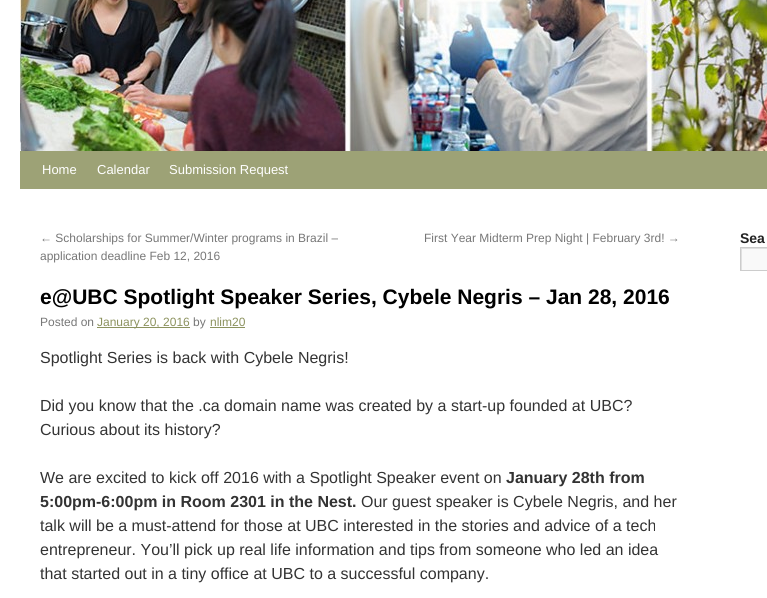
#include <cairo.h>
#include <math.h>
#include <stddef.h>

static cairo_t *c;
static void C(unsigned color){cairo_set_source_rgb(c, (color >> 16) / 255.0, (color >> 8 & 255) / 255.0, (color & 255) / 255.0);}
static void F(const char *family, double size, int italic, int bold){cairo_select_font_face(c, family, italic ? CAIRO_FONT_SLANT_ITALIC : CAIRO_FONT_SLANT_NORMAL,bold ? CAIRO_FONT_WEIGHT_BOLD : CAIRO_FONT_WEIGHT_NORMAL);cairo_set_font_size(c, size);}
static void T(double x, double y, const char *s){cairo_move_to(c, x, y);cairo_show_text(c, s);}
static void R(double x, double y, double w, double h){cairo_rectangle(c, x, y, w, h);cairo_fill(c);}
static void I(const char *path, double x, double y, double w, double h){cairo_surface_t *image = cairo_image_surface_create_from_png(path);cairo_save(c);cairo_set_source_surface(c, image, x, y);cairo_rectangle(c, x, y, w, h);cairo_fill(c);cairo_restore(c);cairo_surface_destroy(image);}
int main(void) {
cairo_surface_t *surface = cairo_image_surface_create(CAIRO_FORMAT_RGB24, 767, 598);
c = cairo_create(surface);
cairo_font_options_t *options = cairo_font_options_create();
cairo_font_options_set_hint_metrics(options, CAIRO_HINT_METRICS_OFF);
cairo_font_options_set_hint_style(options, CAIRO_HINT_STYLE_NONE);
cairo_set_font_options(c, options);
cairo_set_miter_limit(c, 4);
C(0xffffff);
cairo_paint(c);
I("1.png",20,0,747,151);
C(0x9da276);
R(20,151,747,38);
F("Liberation Sans",13,0,0);
C(0xffffff);
T(42,174,"Home");
T(97,174,"Calendar");
T(169,174,"Submission Request");
F("Liberation Sans",12,0,0);
C(0x777777);
T(40,242,"← Scholarships for Summer/Winter programs in Brazil –");
T(40,260,"application deadline Feb 12, 2016");
T(424,242,"First Year Midterm Prep Night | February 3rd! →");
F("Liberation Sans",21,0,1);
C(0x000000);
T(40,304,"e@UBC Spotlight Speaker Series, Cybele Negris – Jan 28, 2016");
F("Liberation Sans",12,0,0);
C(0x777777);
T(40,326,"Posted on");
C(0x8c925e);
R(97,327,93,1);
T(97,326,"January 20, 2016");
C(0x777777);
T(193,326,"by");
C(0x8c925e);
T(210,326,"nlim20");
R(210,327,35,1);
F("Liberation Sans",16,0,0);
C(0x333333);
T(40,363,"Spotlight Series is back with Cybele Negris!");
T(40,411,"Did you know that the .ca domain name was created by a start-up founded at UBC?");
T(40,435,"Curious about its history?");
T(40,483,"We are excited to kick off 2016 with a Spotlight Speaker event on");
F("Liberation Sans",16,0,1);
T(506,483,"January 28th from");
T(40,507,"5:00pm-6:00pm in Room 2301 in the Nest.");
F("Liberation Sans",16,0,0);
T(361,507,"Our guest speaker is Cybele Negris, and her");
T(40,531,"talk will be a must-attend for those at UBC interested in the stories and advice of a tech");
T(40,555,"entrepreneur. You’ll pick up real life information and tips from someone who led an idea");
T(40,579,"that started out in a tiny office at UBC to a successful company.");
F("Liberation Sans",14,0,1);
C(0x222222);
T(740,243,"Sea");
C(0xf9f9f9);
R(742,249,25,21);
cairo_save(c);
cairo_rectangle(c,741,248,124,22);
cairo_clip(c);
C(0xe0e0e0);
cairo_set_fill_rule(c,CAIRO_FILL_RULE_EVEN_ODD);
cairo_new_path(c);
cairo_move_to(c,642,149);
cairo_line_to(c,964,149);
cairo_line_to(c,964,369);
cairo_line_to(c,642,369);
cairo_close_path(c);
cairo_move_to(c,742,249);
cairo_line_to(c,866,249);
cairo_line_to(c,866,271);
cairo_line_to(c,742,271);
cairo_close_path(c);
cairo_fill(c);
cairo_restore(c);
cairo_rectangle(c,740.5,247.5,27,23);
C(0xcccccc);
cairo_set_line_width(c,1);
cairo_stroke(c);
cairo_surface_write_to_png(surface, "o.png");
cairo_font_options_destroy(options);
cairo_destroy(c);
cairo_surface_destroy(surface);
return 0;
}
